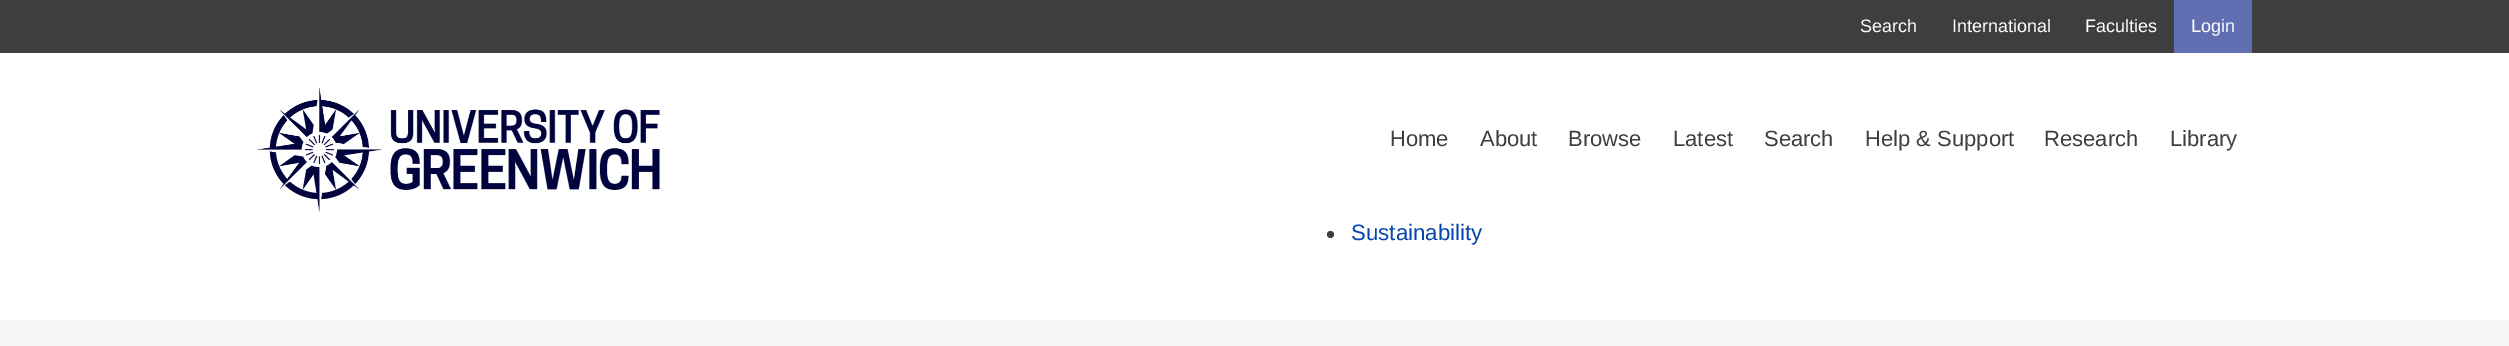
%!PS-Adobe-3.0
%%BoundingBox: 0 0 2509 346
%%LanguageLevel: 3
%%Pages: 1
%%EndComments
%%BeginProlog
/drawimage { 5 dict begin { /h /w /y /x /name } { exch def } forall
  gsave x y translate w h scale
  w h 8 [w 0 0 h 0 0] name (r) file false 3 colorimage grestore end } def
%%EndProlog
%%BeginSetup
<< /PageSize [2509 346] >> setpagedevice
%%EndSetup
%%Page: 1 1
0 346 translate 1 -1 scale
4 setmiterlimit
1 setgray
0 0 2509 346 rectfill
0.243 setgray
0 0 2509 53 rectfill
0.376 0.431 0.698 setrgbcolor
2174 0 78 53 rectfill
(images/1.raw) 257 88 403 124 drawimage
0.965 setgray
0 320 2509 26 rectfill
0.243 setgray
newpath 1330.5 234.5 3.5 0 360 arc closepath fill
/LiberationSans-Regular [18 0 0 -18 0 0] selectfont
1 setgray
1860 32 moveto (Search) show
1952 32 moveto (International) show
2085 32 moveto (Faculties) show
2191 32 moveto (Login) show
/LiberationSans-Regular [22 0 0 -22 0 0] selectfont
0.243 setgray
1390 146 moveto (Home) show
1480 146 moveto (About) show
1568 146 moveto (Browse) show
1673 146 moveto (Latest) show
1764 146 moveto (Search) show
1865 146 moveto (Help & Support) show
2044 146 moveto (Research) show
2170 146 moveto (Library) show
/LiberationSans-Regular [22.25 0 0 -22.25 0 0] selectfont
0.024 0.271 0.678 setrgbcolor
1351 240 moveto (Sustainability) show
showpage
%%EOF
